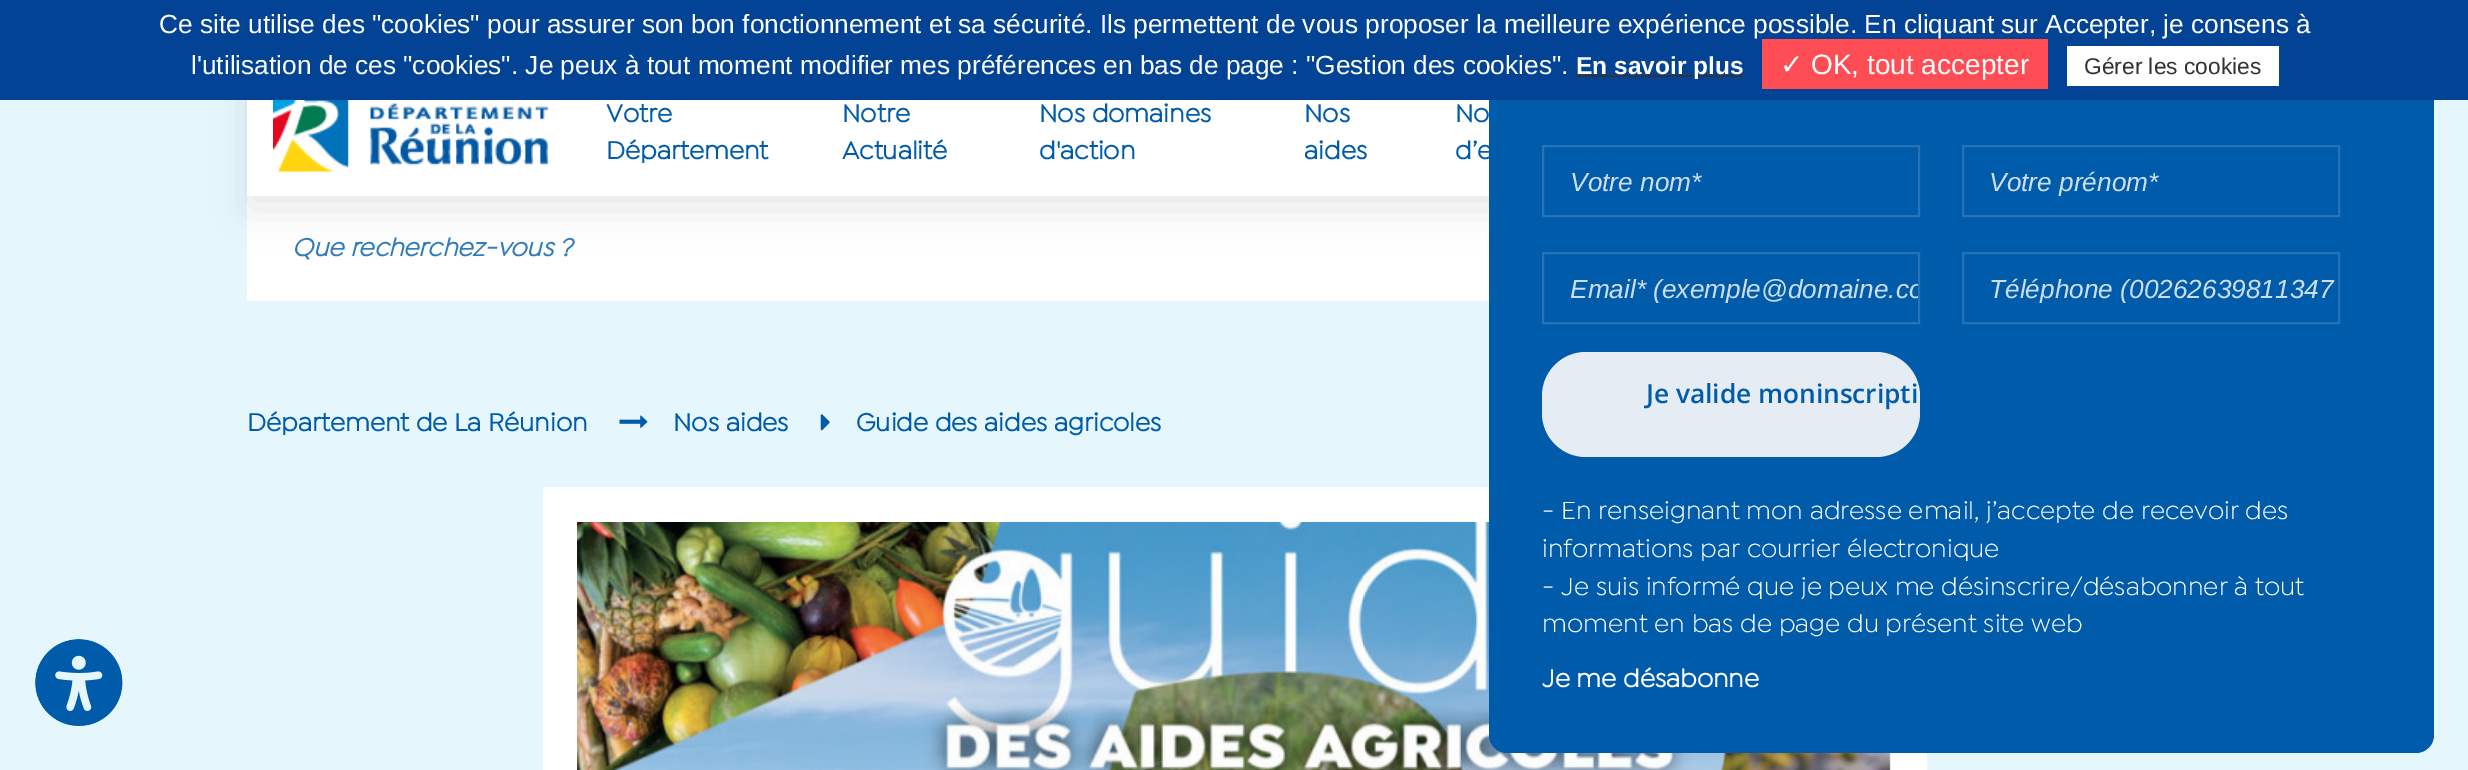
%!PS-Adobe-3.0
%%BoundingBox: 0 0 2468 770
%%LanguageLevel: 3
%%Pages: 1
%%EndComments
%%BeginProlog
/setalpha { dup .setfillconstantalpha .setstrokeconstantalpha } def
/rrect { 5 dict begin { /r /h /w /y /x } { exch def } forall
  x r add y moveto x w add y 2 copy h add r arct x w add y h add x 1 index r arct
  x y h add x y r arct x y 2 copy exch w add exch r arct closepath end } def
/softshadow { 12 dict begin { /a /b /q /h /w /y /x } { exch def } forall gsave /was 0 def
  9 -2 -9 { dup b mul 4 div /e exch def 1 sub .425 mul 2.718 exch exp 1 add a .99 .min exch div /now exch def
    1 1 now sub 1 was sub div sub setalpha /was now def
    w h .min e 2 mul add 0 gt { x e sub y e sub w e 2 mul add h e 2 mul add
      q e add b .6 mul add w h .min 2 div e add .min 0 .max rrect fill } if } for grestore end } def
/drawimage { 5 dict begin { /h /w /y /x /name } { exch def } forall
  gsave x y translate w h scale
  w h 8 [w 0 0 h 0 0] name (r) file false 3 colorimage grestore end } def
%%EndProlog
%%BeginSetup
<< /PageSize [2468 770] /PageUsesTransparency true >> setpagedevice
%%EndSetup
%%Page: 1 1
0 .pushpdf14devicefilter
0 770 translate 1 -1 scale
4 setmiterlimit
0.898 0.965 0.988 setrgbcolor
0 0 2468 770 rectfill
1 setgray
247 196 1242 105 rectfill
0 setgray
249 84 1975 124 0 19 0.1 softshadow
1 setgray
543 487 1384 283 rectfill
(images/5.raw) 577 522 1314 248 drawimage
0 0.357 0.667 setrgbcolor
1489 18 945 735 18 rrect fill
0.008 0.263 0.584 setrgbcolor
0 0 2468 100 rectfill
0.2 setgray
1575 75 168 2 rectfill
0.996 0.302 0.333 setrgbcolor
1762 39 286 50 rectfill
1 setgray
2067 46 212 40 rectfill
247 100 1242 96 rectfill
(images/1.raw) 273 100 276 73 drawimage
(images/2.raw) 619 415 29 13 drawimage
(images/3.raw) 820 414 10 17 drawimage
(images/4.raw) 35 639 88 87 drawimage
0.149 0.455 0.718 setrgbcolor
2 setlinewidth
1543 146 376 70 rectstroke
1963 146 376 70 rectstroke
1543 253 376 70 rectstroke
1963 253 376 70 rectstroke
0.898 0.925 0.957 setrgbcolor
1542 352 378 105 44 rrect fill
/LiberationSans-Regular [26.25 0 0 -26.25 0 0] selectfont
1 setgray
159 33 moveto (Ce site utilise des "cookies" pour assurer son bon fonctionnement et sa sécurité. Ils permettent de vous proposer la meilleure expérience possible. En cliquant sur Accepter, je consens à) show
191 74 moveto (l'utilisation de ces "cookies". Je peux à tout moment modifier mes préférences en bas de page : "Gestion des cookies".) show
/LiberationSans-Bold [24.5 0 0 -24.5 0 0] selectfont
1576 74 moveto (En savoir plus) show
/DejaVuSans-Regular [28 0 0 -28 0 0] selectfont
1780 74 moveto (✓) show
/LiberationSans-Regular [28 0 0 -28 0 0] selectfont
1811 74 moveto (OK, tout accepter) show
/LiberationSans-Regular [22.75 0 0 -22.75 0 0] selectfont
0.2 setgray
2084 74 moveto (Gérer les cookies) show
/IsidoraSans-Bold [26.25 0 0 -26.25 0 0] selectfont
0 0.357 0.667 setrgbcolor
606 122 moveto (Votre) show
606 159 moveto (Département) show
842 122 moveto (Notre) show
842 159 moveto (Actualité) show
1039 122 moveto (Nos domaines) show
1039 159 moveto (d'action) show
1304 122 moveto (Nos) show
1304 159 moveto (aides) show
1455 122 moveto (No) show
1455 159 moveto (d’e) show
/IsidoraSans-BoldItalic [26.25 0 0 -26.25 0 0] selectfont
0.2 0.486 0.733 setrgbcolor
292 256 moveto (Que recherchez-vous ?) show
/IsidoraSans-Bold [26.25 0 0 -26.25 0 0] selectfont
0 0.357 0.667 setrgbcolor
247 431 moveto (Département de La Réunion) show
673 431 moveto (Nos aides) show
856 431 moveto (Guide des aides agricoles) show
/LiberationSans-Italic [26.25 0 0 -26.25 0 0] selectfont
0.8 0.871 0.933 setrgbcolor
1570 191 moveto (Votre nom*) show
gsave
1990 166 348 30 rectclip
1989 191 moveto (Votre prénom*) show
grestore
gsave
1570 273 348 30 rectclip
1570 298 moveto (Email* \(exemple@domaine.co) show
grestore
gsave
1990 273 348 30 rectclip
1989 298 moveto (Téléphone \(00262639811347) show
grestore
/OpenSans-SemiBold [26.25 0 0 -26.25 0 0] selectfont
0 0.357 0.667 setrgbcolor
1646 403 moveto (Je valide moninscripti) show
/IsidoraSans-Regular [26.25 0 0 -26.25 0 0] selectfont
1 setgray
1542 519 moveto (- En renseignant mon adresse email, j’accepte de recevoir des) show
1542 557 moveto (informations par courrier électronique) show
1542 595 moveto (- Je suis informé que je peux me désinscrire/désabonner à tout) show
1542 632 moveto (moment en bas de page du présent site web) show
/IsidoraSans-Bold [26.25 0 0 -26.25 0 0] selectfont
1542 687 moveto (Je me désabonne) show
.poppdf14devicefilter showpage
%%EOF
